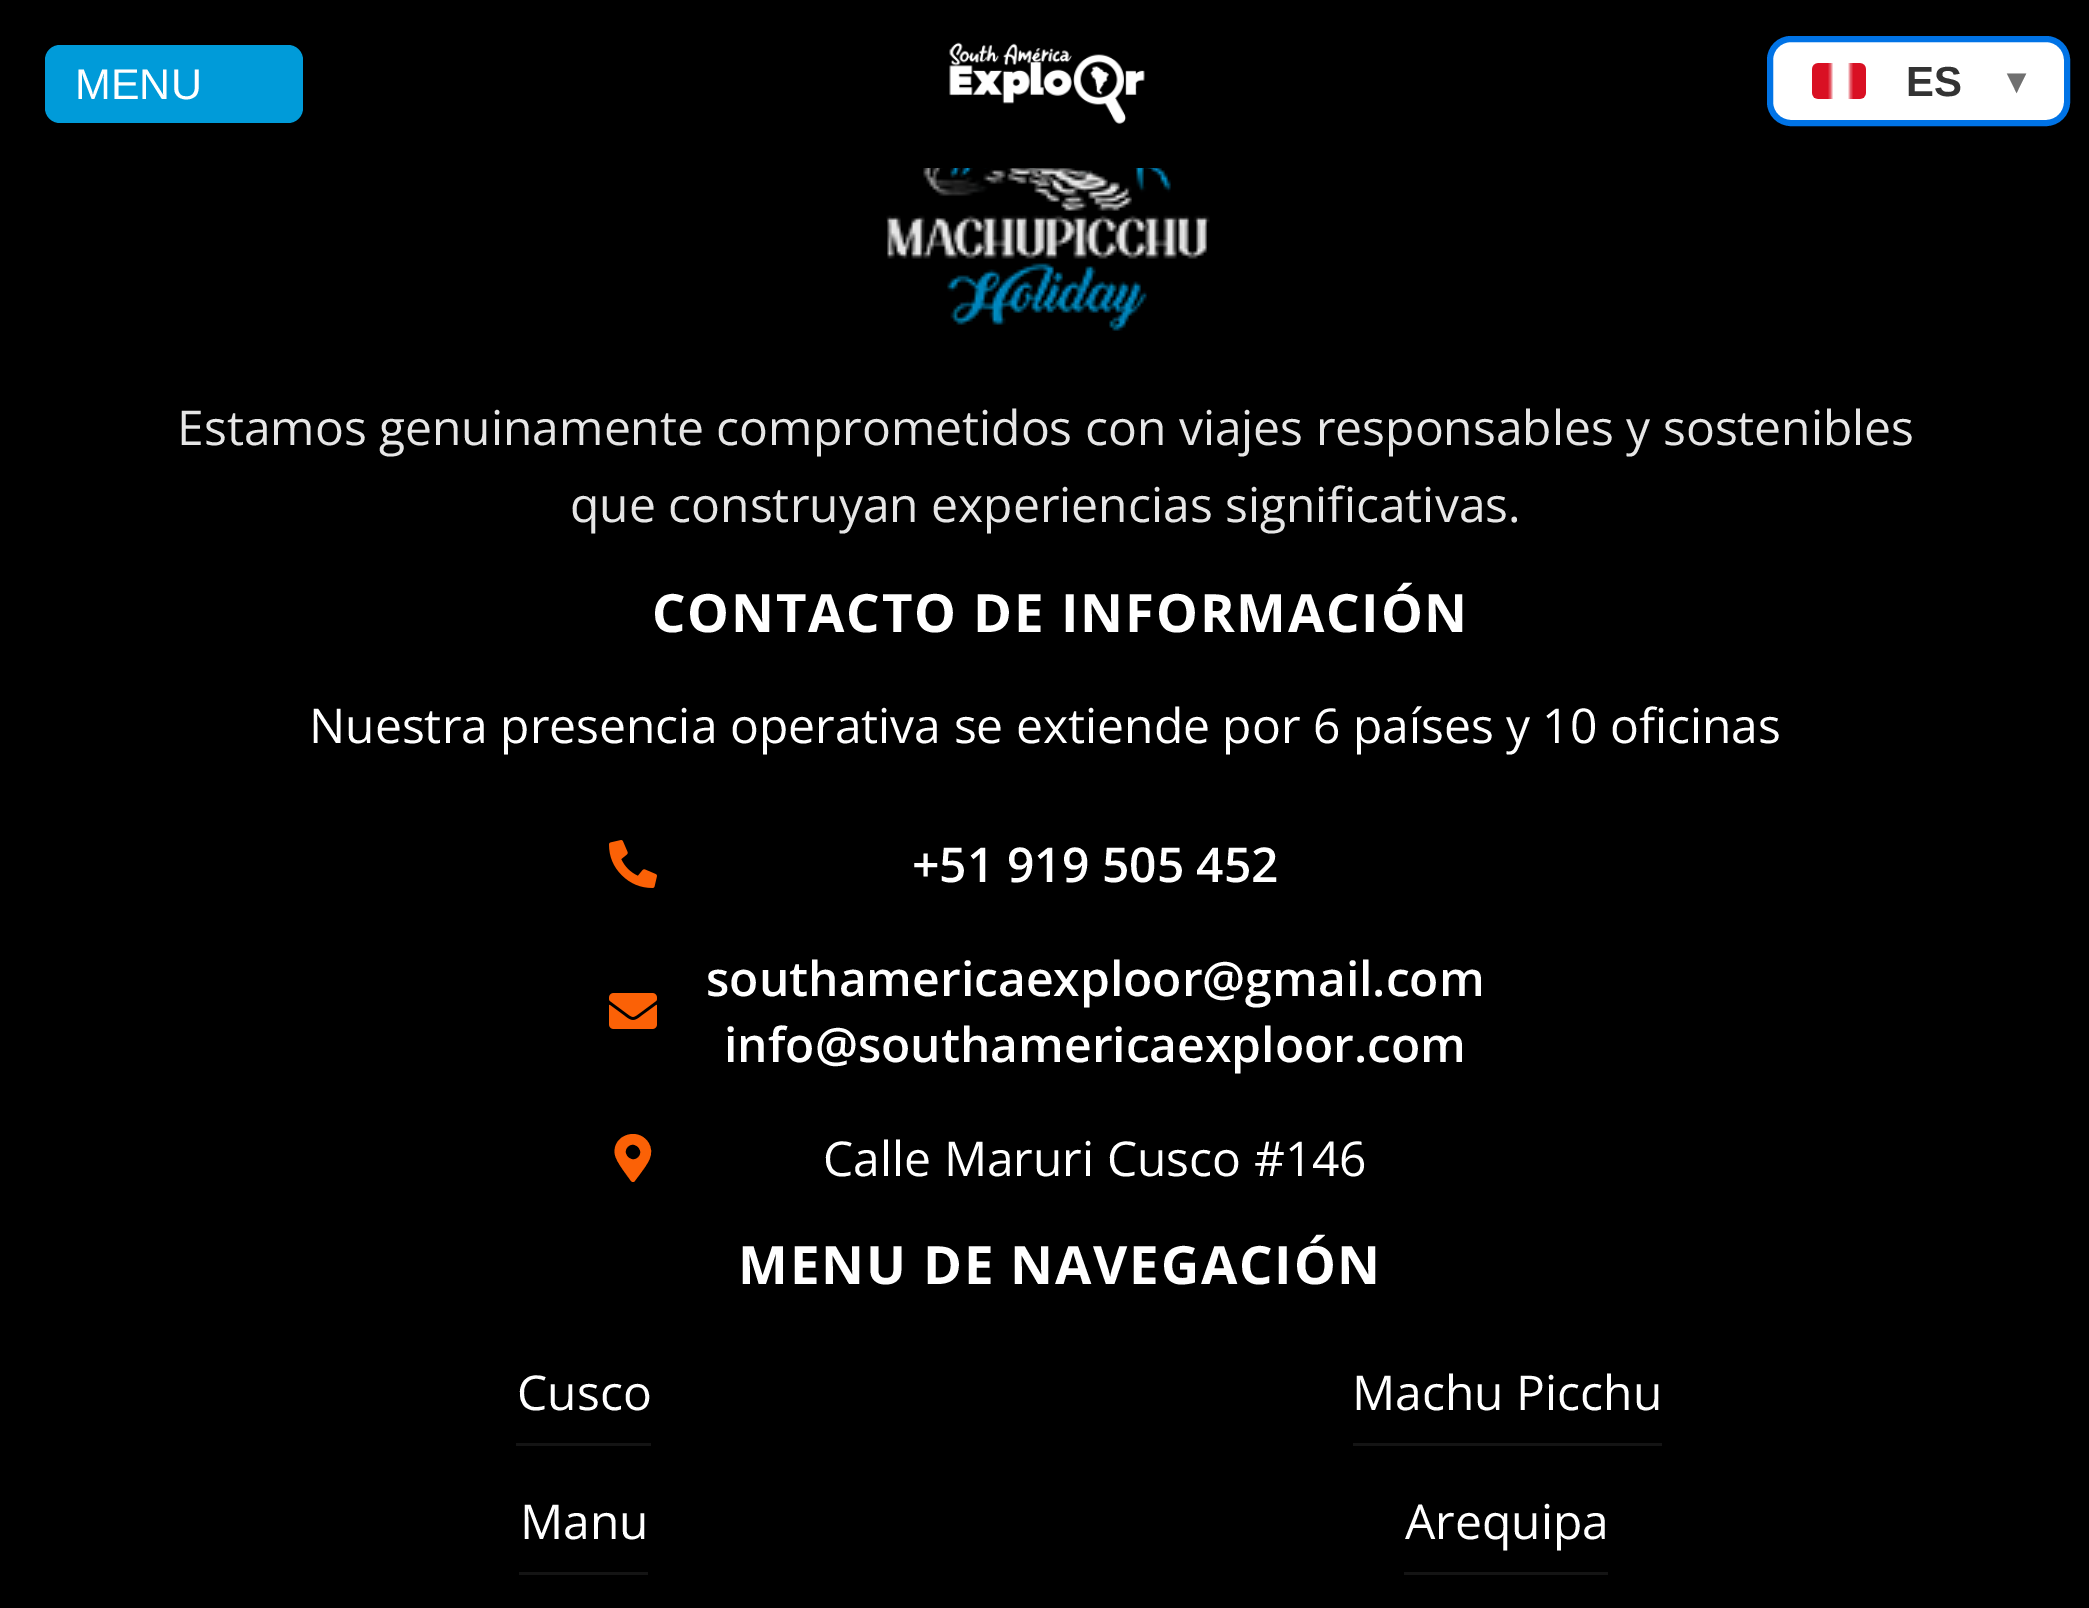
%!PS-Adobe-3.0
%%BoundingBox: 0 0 2089 1608
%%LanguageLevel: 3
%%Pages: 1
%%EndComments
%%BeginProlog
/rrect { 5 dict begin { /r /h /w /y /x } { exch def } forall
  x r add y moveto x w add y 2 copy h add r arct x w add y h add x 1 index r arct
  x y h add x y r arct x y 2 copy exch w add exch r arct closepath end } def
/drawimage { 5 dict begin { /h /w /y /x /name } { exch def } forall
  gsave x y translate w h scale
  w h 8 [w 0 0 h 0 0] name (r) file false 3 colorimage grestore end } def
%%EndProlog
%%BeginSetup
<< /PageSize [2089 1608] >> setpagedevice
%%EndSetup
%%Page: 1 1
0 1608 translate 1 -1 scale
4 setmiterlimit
0 setgray
0 0 2089 1608 rectfill
0 0.608 0.851 setrgbcolor
45 45 258 78 15 rrect fill
(images/1.raw) 949 42 196 82 drawimage
1 setgray
1770 39 297 84 21 rrect gsave fill grestore
0 0.451 0.902 setrgbcolor
6 setlinewidth
stroke
(images/2.raw) 1812 63 54 36 drawimage
(images/3.raw) 886 168 324 163 drawimage
(images/4.raw) 609 840 48 48 drawimage
(images/5.raw) 609 993 48 36 drawimage
0.984 0.38 0.024 setrgbcolor
newpath 631 1181 moveto 627 1175 617 1163 615 1155 curveto 611 1136 637 1126 648 1142 curveto 656 1154 647 1164 640 1174 curveto 634 1182 lineto 633 1182 632 1182 631 1181 curveto closepath 628 1157 moveto 635 1164 645 1154 638 1147 curveto 631 1140 621 1150 628 1157 curveto closepath fill
0.078 setgray
516 1443 135 3 rectfill
1353 1443 309 3 rectfill
519 1572 129 3 rectfill
1404 1572 204 3 rectfill
/LiberationSans-Regular [43 0 0 -43 0 0] selectfont
1 setgray
75 99 moveto (MENU) show
/LiberationSans-Bold [42 0 0 -42 0 0] selectfont
0.2 setgray
1906 96 moveto (ES) show
/DejaVuSans-Bold [36 0 0 -36 0 0] selectfont
0.439 setgray
2007 93 moveto (▾) show
/OpenSans-Regular [48 0 0 -48 0 0] selectfont
0.902 setgray
177 445 moveto (Estamos genuinamente comprometidos con viajes responsables y sostenibles) show
570 522 moveto (que construyan experiencias significativas.) show
/OpenSans-Bold [52.75 0 0 -52.75 0 0] selectfont
1 setgray
652 632 moveto 1.8 0 (CONTACTO DE INFORMACIÓN) ashow
/OpenSans-Regular [48 0 0 -48 0 0] selectfont
309 743 moveto (Nuestra presencia operativa se extiende por 6 países y 10 oficinas) show
/OpenSans-SemiBold [48 0 0 -48 0 0] selectfont
912 882 moveto (+51 919 505 452) show
706 996 moveto (southamericaexploor@gmail.com) show
724 1062 moveto (info@southamericaexploor.com) show
/OpenSans-Regular [48 0 0 -48 0 0] selectfont
823 1176 moveto (Calle Maruri Cusco #146) show
/OpenSans-Bold [52.75 0 0 -52.75 0 0] selectfont
738 1284 moveto 1.8 0 (MENU DE NAVEGACIÓN) ashow
/OpenSans-Regular [48 0 0 -48 0 0] selectfont
517 1410 moveto (Cusco) show
1352 1410 moveto (Machu Picchu) show
520 1539 moveto (Manu) show
1405 1539 moveto (Arequipa) show
showpage
%%EOF
